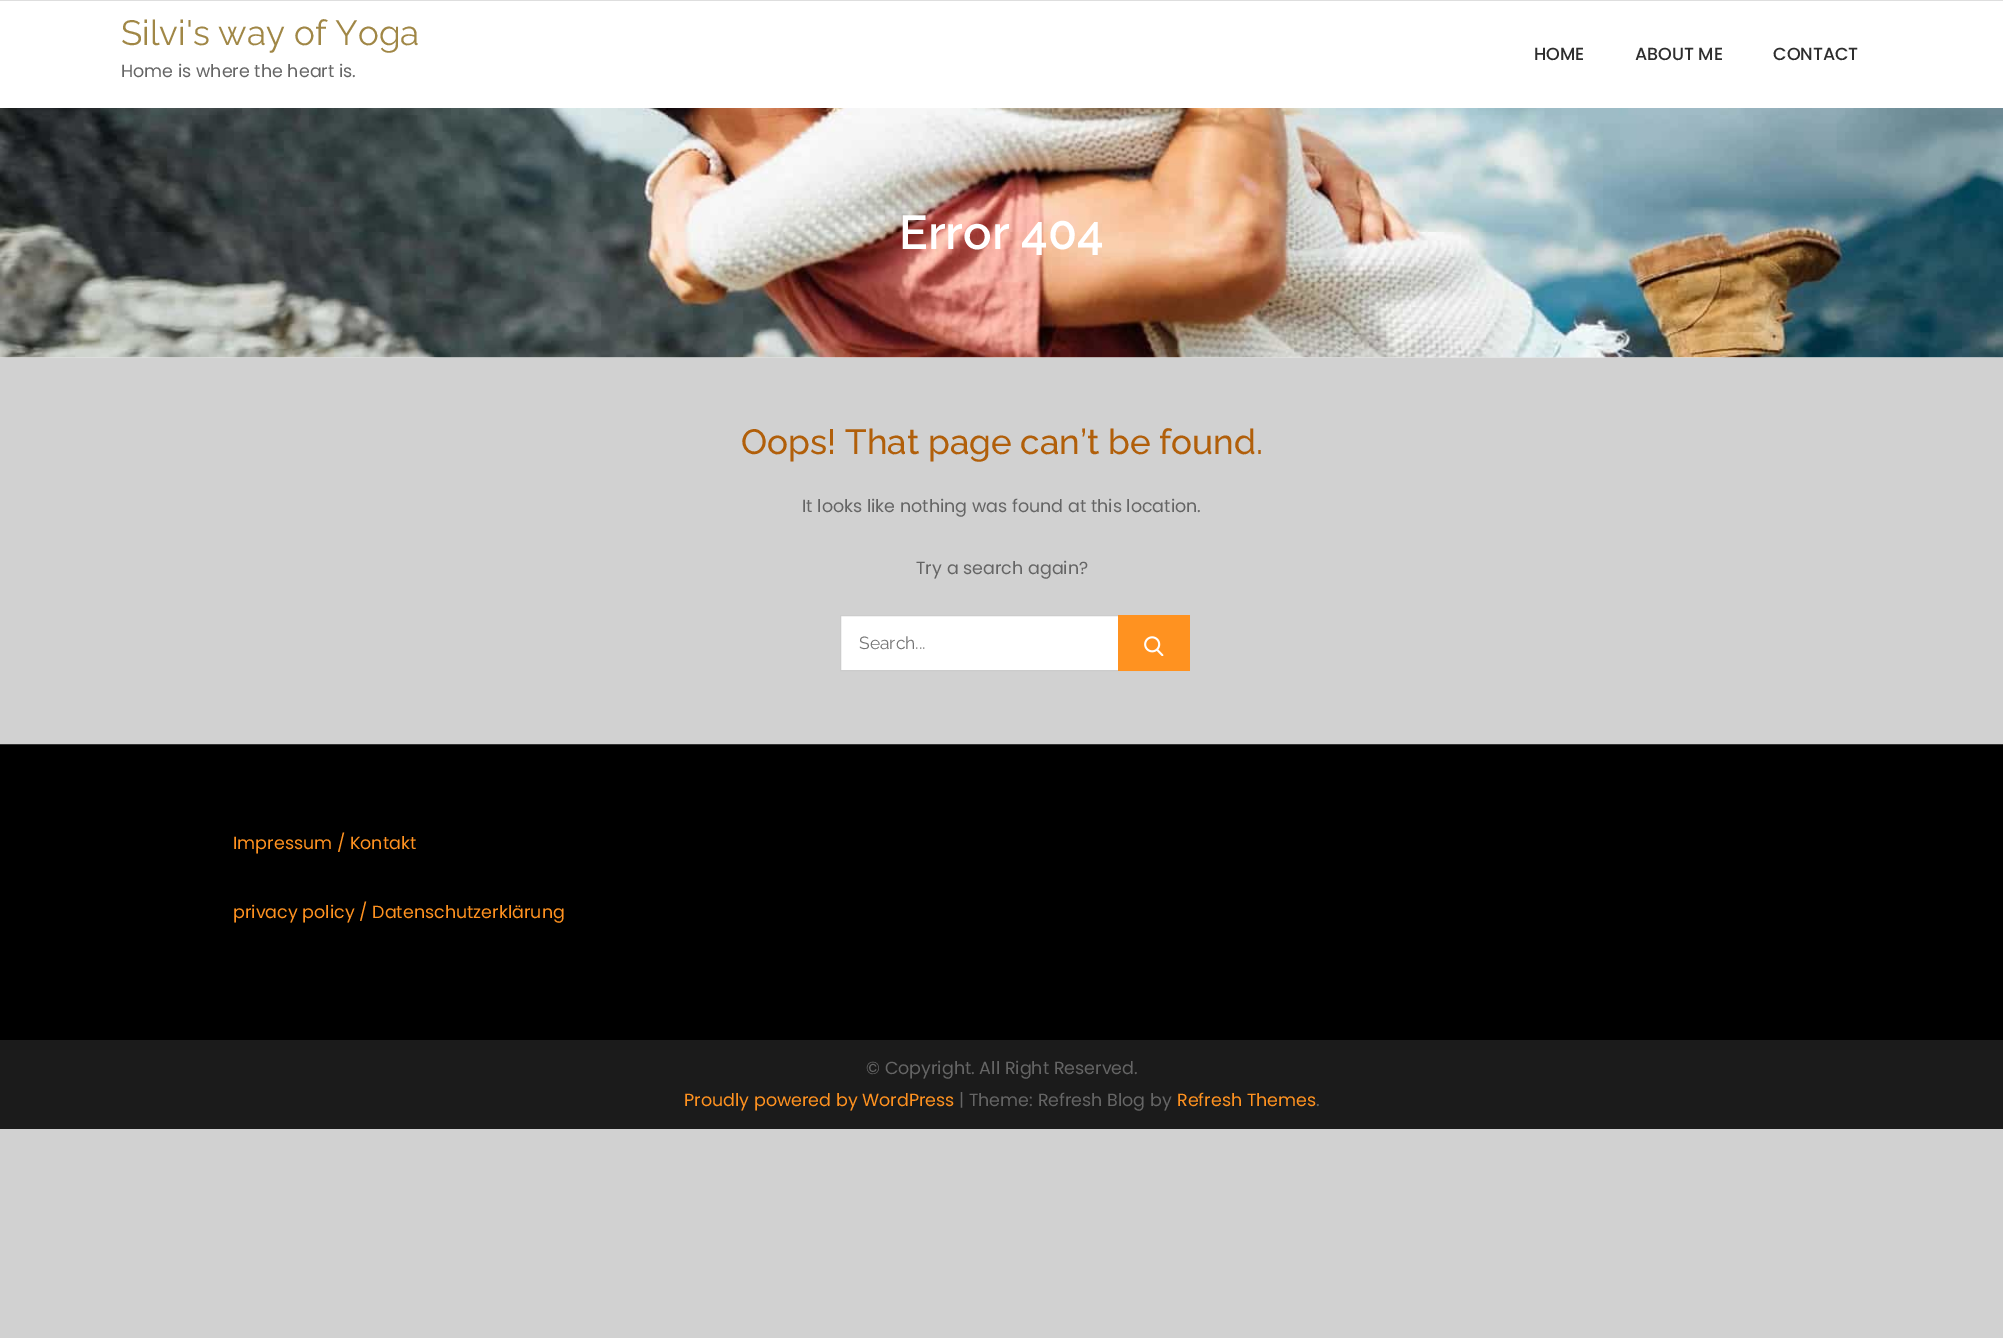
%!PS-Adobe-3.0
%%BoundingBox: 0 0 2003 1338
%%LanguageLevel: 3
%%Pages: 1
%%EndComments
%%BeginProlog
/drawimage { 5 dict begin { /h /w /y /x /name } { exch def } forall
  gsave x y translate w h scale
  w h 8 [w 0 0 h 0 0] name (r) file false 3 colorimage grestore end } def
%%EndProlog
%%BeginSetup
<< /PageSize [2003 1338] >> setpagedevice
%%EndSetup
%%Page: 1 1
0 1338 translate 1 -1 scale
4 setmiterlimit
0.82 setgray
0 0 2003 1338 rectfill
1 setgray
0 1 2003 107 rectfill
0.871 setgray
0 0 2003 1 rectfill
0.882 setgray
0 357 2003 1 rectfill
(images/1.raw) 0 108 2003 250 drawimage
1 setgray
841 616 277 54 rectfill
0.8 setgray
840.5 615.5 324 55 rectstroke
1 0.573 0.125 setrgbcolor
1118 615 72 56 rectfill
(images/2.raw) 1144 636 20 20 drawimage
0 setgray
0 745 2003 295 rectfill
0.2 setgray
0 744 2003 1 rectfill
0.106 setgray
0 1040 2003 89 rectfill
/Raleway-Regular [35 0 0 -35 0 0] selectfont
0.627 0.529 0.275 setrgbcolor
121 45 moveto (Silvi's way of Yoga) show
/Poppins-Regular [17.5 0 0 -17.5 0 0] selectfont
0.396 setgray
121 77 moveto (Home is where the heart is.) show
/Poppins-Medium [17.5 0 0 -17.5 0 0] selectfont
0.18 setgray
1534 60 moveto (HOME) show
1635 60 moveto (ABOUT ME) show
1773 60 moveto (CONTACT) show
/Raleway-SemiBold [47.5 0 0 -47.5 0 0] selectfont
1 setgray
899 249 moveto (Error 404) show
/Raleway-Medium [35 0 0 -35 0 0] selectfont
0.694 0.373 0.039 setrgbcolor
741 454 moveto (Oops! That page can’t be found.) show
/Poppins-Regular [17.5 0 0 -17.5 0 0] selectfont
0.396 setgray
802 512 moveto (It looks like nothing was found at this location.) show
916 574 moveto (Try a search again?) show
/Raleway-Regular [17.5 0 0 -17.5 0 0] selectfont
0.459 setgray
859 649 moveto (Search...) show
/Poppins-Regular [17.5 0 0 -17.5 0 0] selectfont
1 0.573 0.125 setrgbcolor
233 849 moveto (Impressum / Kontakt) show
233 918 moveto (privacy policy / Datenschutzerklärung) show
0.396 setgray
866 1074 moveto (© Copyright. All Right Reserved.) show
1 0.573 0.125 setrgbcolor
684 1106 moveto (Proudly powered by WordPress) show
0.396 setgray
959 1106 moveto (| Theme: Refresh Blog by) show
1 0.573 0.125 setrgbcolor
1177 1106 moveto (Refresh Themes) show
0.396 setgray
1316 1106 moveto (.) show
showpage
%%EOF
